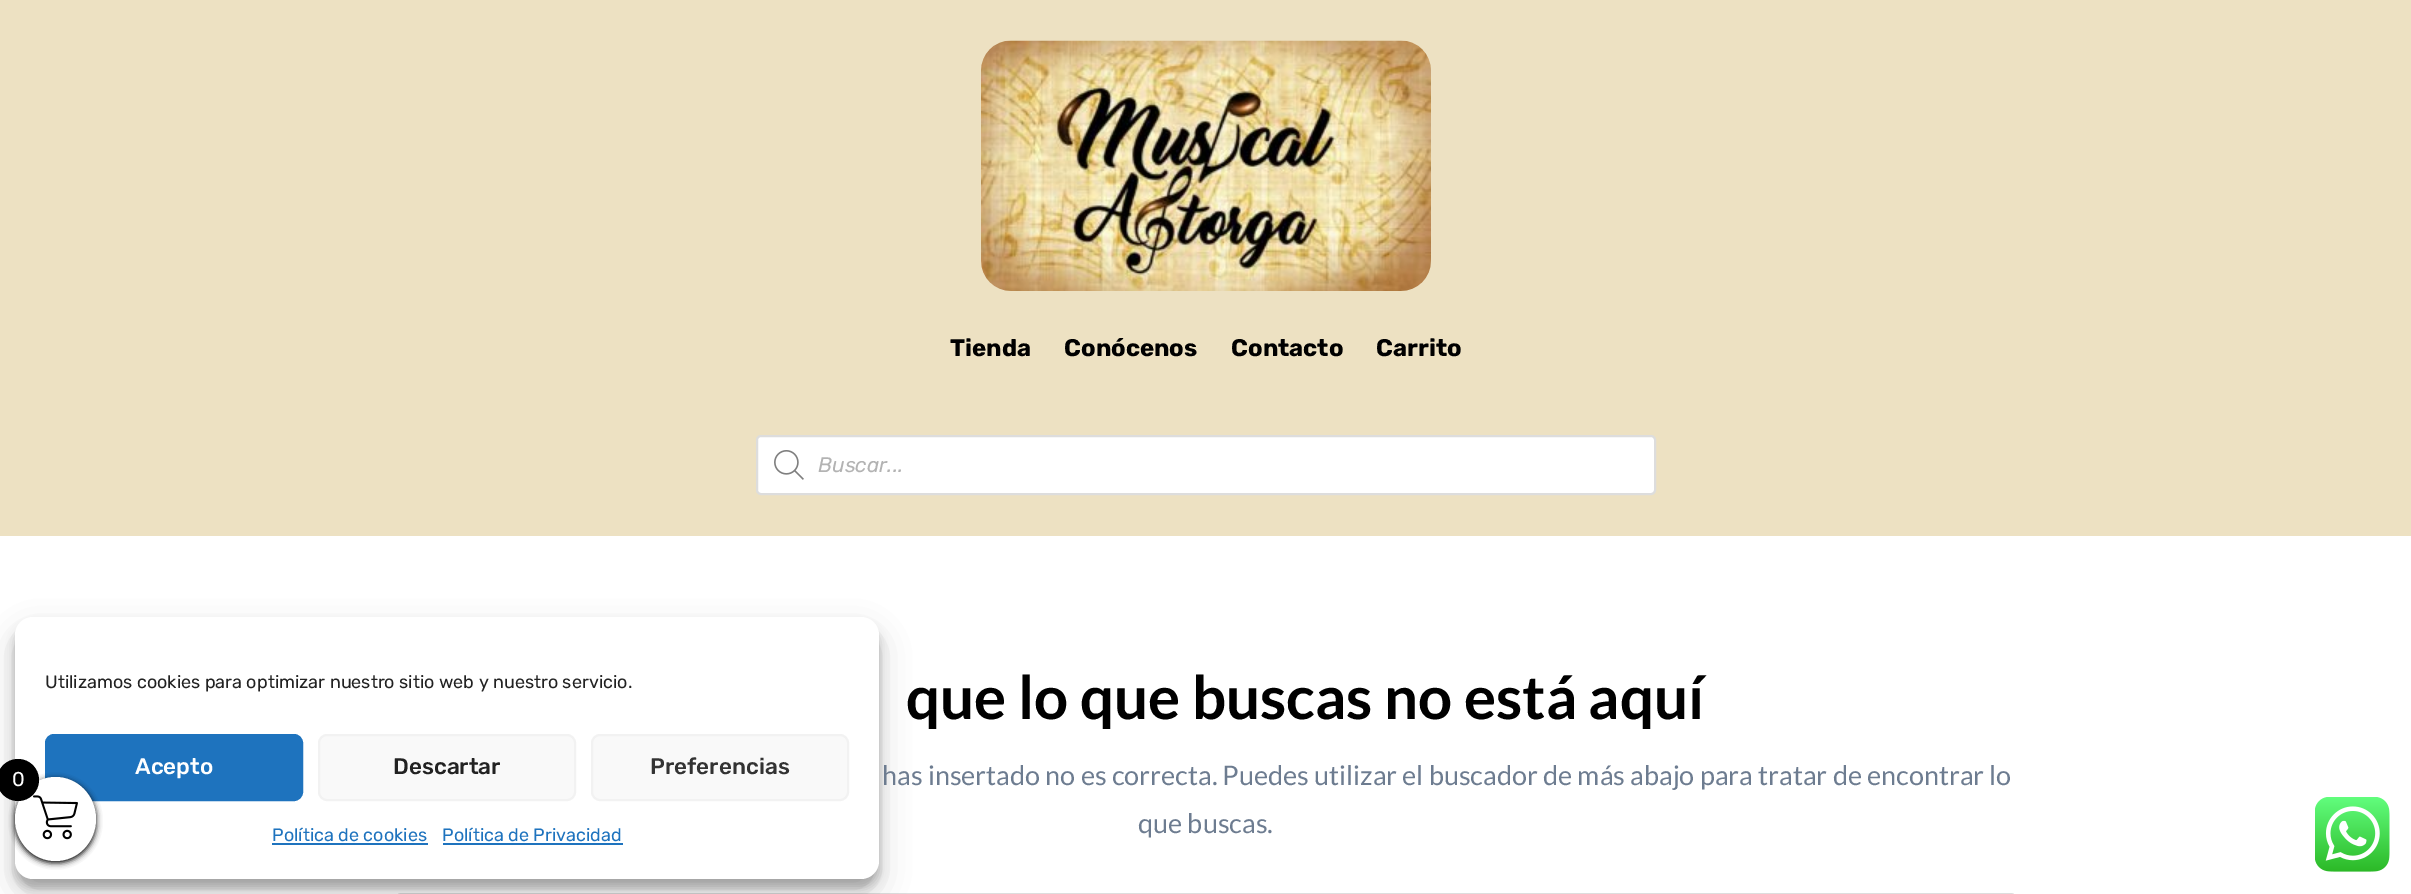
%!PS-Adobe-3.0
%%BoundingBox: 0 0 2411 894
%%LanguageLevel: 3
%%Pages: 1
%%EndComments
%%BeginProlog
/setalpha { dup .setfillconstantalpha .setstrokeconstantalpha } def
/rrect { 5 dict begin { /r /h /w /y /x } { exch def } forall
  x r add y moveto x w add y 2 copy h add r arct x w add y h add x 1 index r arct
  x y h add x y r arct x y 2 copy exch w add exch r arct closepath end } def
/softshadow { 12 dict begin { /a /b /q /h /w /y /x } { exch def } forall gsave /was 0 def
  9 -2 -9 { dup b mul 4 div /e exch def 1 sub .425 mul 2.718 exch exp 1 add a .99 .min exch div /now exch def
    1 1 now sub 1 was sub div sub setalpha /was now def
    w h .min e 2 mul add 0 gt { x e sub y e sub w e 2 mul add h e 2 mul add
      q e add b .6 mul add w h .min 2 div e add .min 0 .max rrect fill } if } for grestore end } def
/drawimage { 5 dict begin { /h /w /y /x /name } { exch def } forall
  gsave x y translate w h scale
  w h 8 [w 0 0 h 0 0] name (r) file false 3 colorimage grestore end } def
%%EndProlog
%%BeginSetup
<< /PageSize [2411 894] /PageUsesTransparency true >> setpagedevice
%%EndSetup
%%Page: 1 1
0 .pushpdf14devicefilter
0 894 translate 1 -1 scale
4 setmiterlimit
1 setgray
0 0 2411 894 rectfill
0.867 setgray
2 setlinewidth
397 894 1618 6 4 rrect stroke
0 setgray
15 626 864 262 18 4.5 0.23 softshadow
15 632 864 262 18 15 0.19 softshadow
1 setgray
15 617 864 262 18 rrect fill
0.118 0.451 0.745 setrgbcolor
46 735 256 65 8 rrect gsave fill grestore
stroke
0 setgray
15 779 81 84 40.5 3 1 softshadow
1 setgray
newpath 55.5 777 moveto 78 777 96 796 96 819 curveto 96 842 78 861 55.5 861 curveto 33 861 15 842 15 819 curveto 15 796 33 777 55.5 777 curveto closepath fill
0 setgray
newpath 18 780 21 0 360 arc closepath fill
(images/1.raw) 33 795 45 45 drawimage
0.976 setgray
319 735 256 65 8 rrect gsave fill grestore
0.949 setgray
stroke
0.976 setgray
592 735 256 65 8 rrect gsave fill grestore
0.949 setgray
stroke
0.118 0.451 0.745 setrgbcolor
272 843 156 2 rectfill
443 843 180 2 rectfill
0.929 0.882 0.761 setrgbcolor
0 0 2411 536 rectfill
(images/2.raw) 981 40 450 251 drawimage
1 setgray
757 436 898 58 4 rrect gsave fill grestore
0.867 setgray
stroke
(images/3.raw) 774 450 30 30 drawimage
(images/4.raw) 2315 797 75 75 drawimage
/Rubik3-Light [20 0 0 -20 0 0] selectfont
1 setgray
12 786 moveto (0) show
/Rubik3-Light [18 0 0 -18 0 0] selectfont
0.133 setgray
45 688 moveto (Utilizamos cookies para optimizar nuestro sitio web y nuestro servicio.) show
/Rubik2-Light [22.5 0 0 -22.5 0 0] selectfont
1 setgray
135 774 moveto (Acepto) show
0.133 setgray
393 774 moveto (Descartar) show
0.2 setgray
650 774 moveto (Preferencias) show
/Rubik3-Light [18 0 0 -18 0 0] selectfont
0.118 0.451 0.745 setrgbcolor
272 841 moveto (Política de cookies) show
442 841 moveto (Política de Privacidad) show
/Rubik-Light [24 0 0 -24 0 0] selectfont
0 setgray
950 356 moveto (Tienda) show
1064 356 moveto (Conócenos) show
1231 356 moveto (Contacto) show
1376 356 moveto (Carrito) show
/Rubik-LightItalic [21 0 0 -21 0 0] selectfont
0.702 setgray
818 472 moveto (Buscar...) show
/Lato-Bold [60 0 0 -60 0 0] selectfont
0 setgray
906 719 moveto (que lo que buscas no está aquí) show
/Lato-Regular [27 0 0 -27 0 0] selectfont
0.427 0.486 0.565 setrgbcolor
882 785 moveto (has insertado no es correcta. Puedes utilizar el buscador de más abajo para tratar de encontrar lo) show
1138 833 moveto (que buscas.) show
.poppdf14devicefilter showpage
%%EOF
